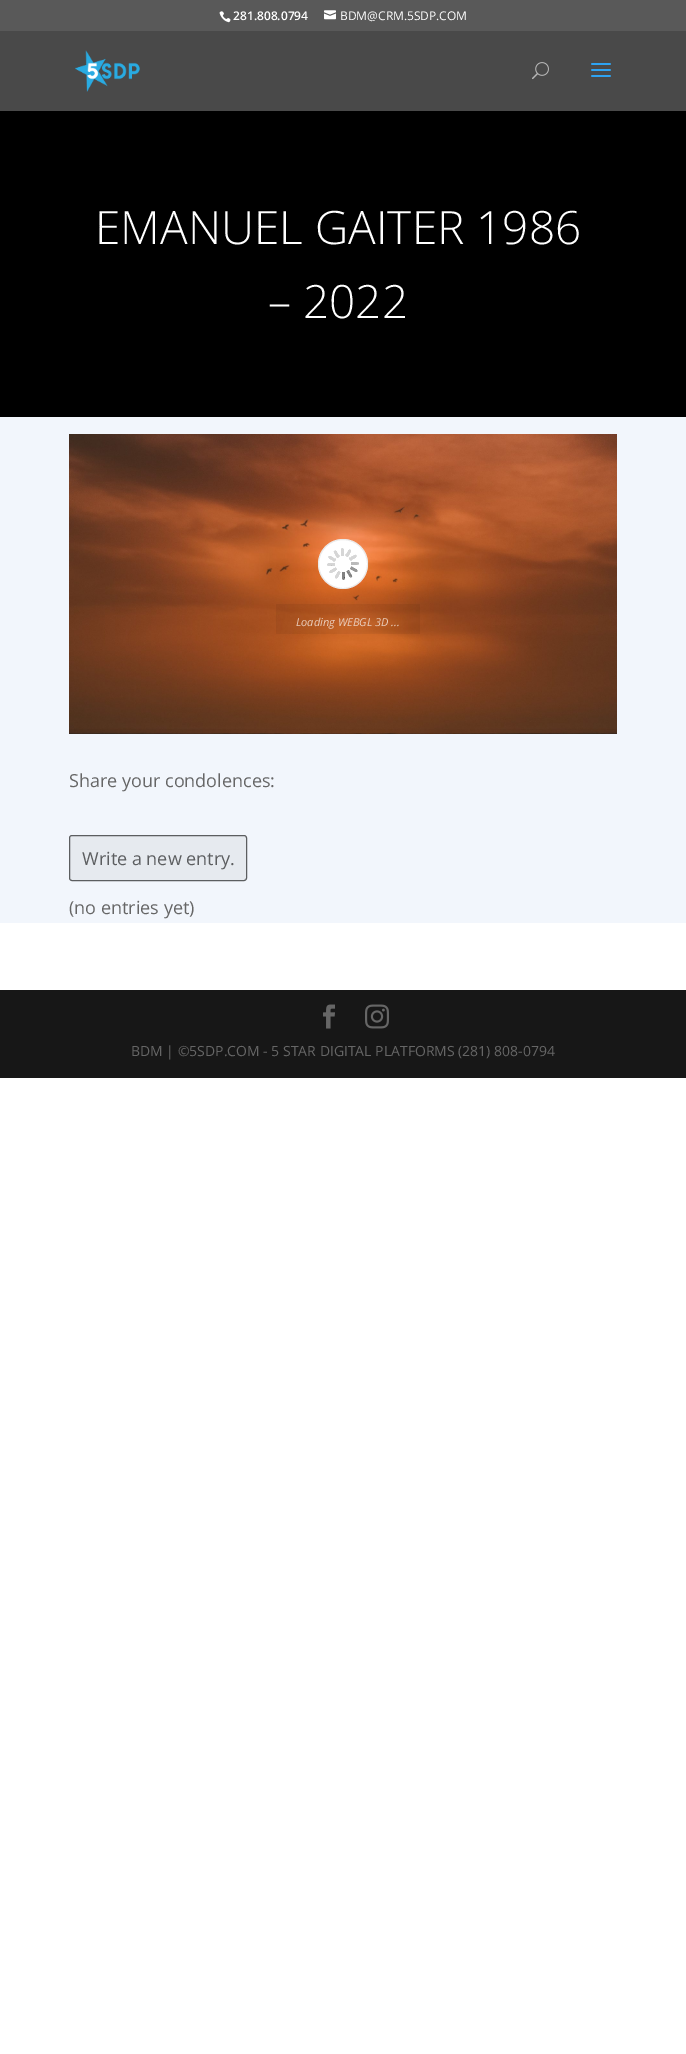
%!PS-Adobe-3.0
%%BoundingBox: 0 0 686 2054
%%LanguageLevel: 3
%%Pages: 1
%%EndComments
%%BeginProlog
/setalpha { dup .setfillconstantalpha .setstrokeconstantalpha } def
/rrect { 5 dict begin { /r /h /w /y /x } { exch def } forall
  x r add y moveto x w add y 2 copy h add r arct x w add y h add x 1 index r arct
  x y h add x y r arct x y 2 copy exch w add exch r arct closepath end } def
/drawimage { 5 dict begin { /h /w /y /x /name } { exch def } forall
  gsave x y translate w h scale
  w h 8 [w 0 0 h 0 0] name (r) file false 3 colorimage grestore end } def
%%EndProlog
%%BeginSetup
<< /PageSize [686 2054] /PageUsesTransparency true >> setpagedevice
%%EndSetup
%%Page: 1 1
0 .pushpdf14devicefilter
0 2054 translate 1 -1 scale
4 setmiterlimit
1 setgray
0 0 686 2054 rectfill
0.349 setgray
0 0 686 31 rectfill
(images/1.raw) 219 11 12 12 drawimage
(images/2.raw) 324 10 12 10 drawimage
0.286 setgray
0 31 686 80 rectfill
(images/3.raw) 75 50 65 42 drawimage
(images/4.raw) 532 62 17 18 drawimage
(images/5.raw) 591 63 20 14 drawimage
0 setgray
0 111 686 306 rectfill
0.949 0.965 0.988 setrgbcolor
0 417 686 506 rectfill
(images/6.raw) 69 434 548 300 drawimage
1 setgray
newpath 343 564 25 0 360 arc closepath fill
0.2 setalpha
0.588 setgray
newpath 343 564 24.5 0 360 arc closepath stroke
1 setalpha
(images/7.raw) 327 548 32 32 drawimage
0.06 setalpha
0 setgray
276 604 144 30 rectfill
1 setalpha
0.902 0.918 0.937 setrgbcolor
69 835 178 46 3 rrect fill
0.6 setalpha
0 setgray
69.5 835.5 177 45 2.5 rrect stroke
1 setalpha
0.09 setgray
0 990 686 88 rectfill
(images/8.raw) 323 1004 12 25 drawimage
(images/9.raw) 365 1004 24 25 drawimage
/OpenSans-SemiBold [12 0 0 -12 0 0] selectfont
1 setgray
233 20 moveto (281.808.0794) show
/OpenSans-Regular [12 0 0 -12 0 0] selectfont
340 20 moveto (BDM@CRM.5SDP.COM) show
/OpenSans-Light [46 0 0 -46 0 0] selectfont
95 244 moveto (EMANUEL GAITER 1986) show
268 318 moveto (– 2022) show
/OpenSans-Italic [11 0 0 -11 0 0] selectfont
0.918 0.808 0.741 setrgbcolor
296 626 moveto (Loading WEBGL 3D ...) show
/OpenSans-Regular [18 0 0 -18 0 0] selectfont
0.4 setgray
69 787 moveto (Share your condolences:) show
0.361 0.369 0.376 setrgbcolor
82 865 moveto (Write a new entry.) show
0.4 setgray
69 914 moveto (\(no entries yet\)) show
/OpenSans-Regular [14 0 0 -14 0 0] selectfont
131 1056 moveto (BDM | ©5SDP.COM - 5 STAR DIGITAL PLATFORMS \(281\) 808-0794) show
.poppdf14devicefilter showpage
%%EOF
